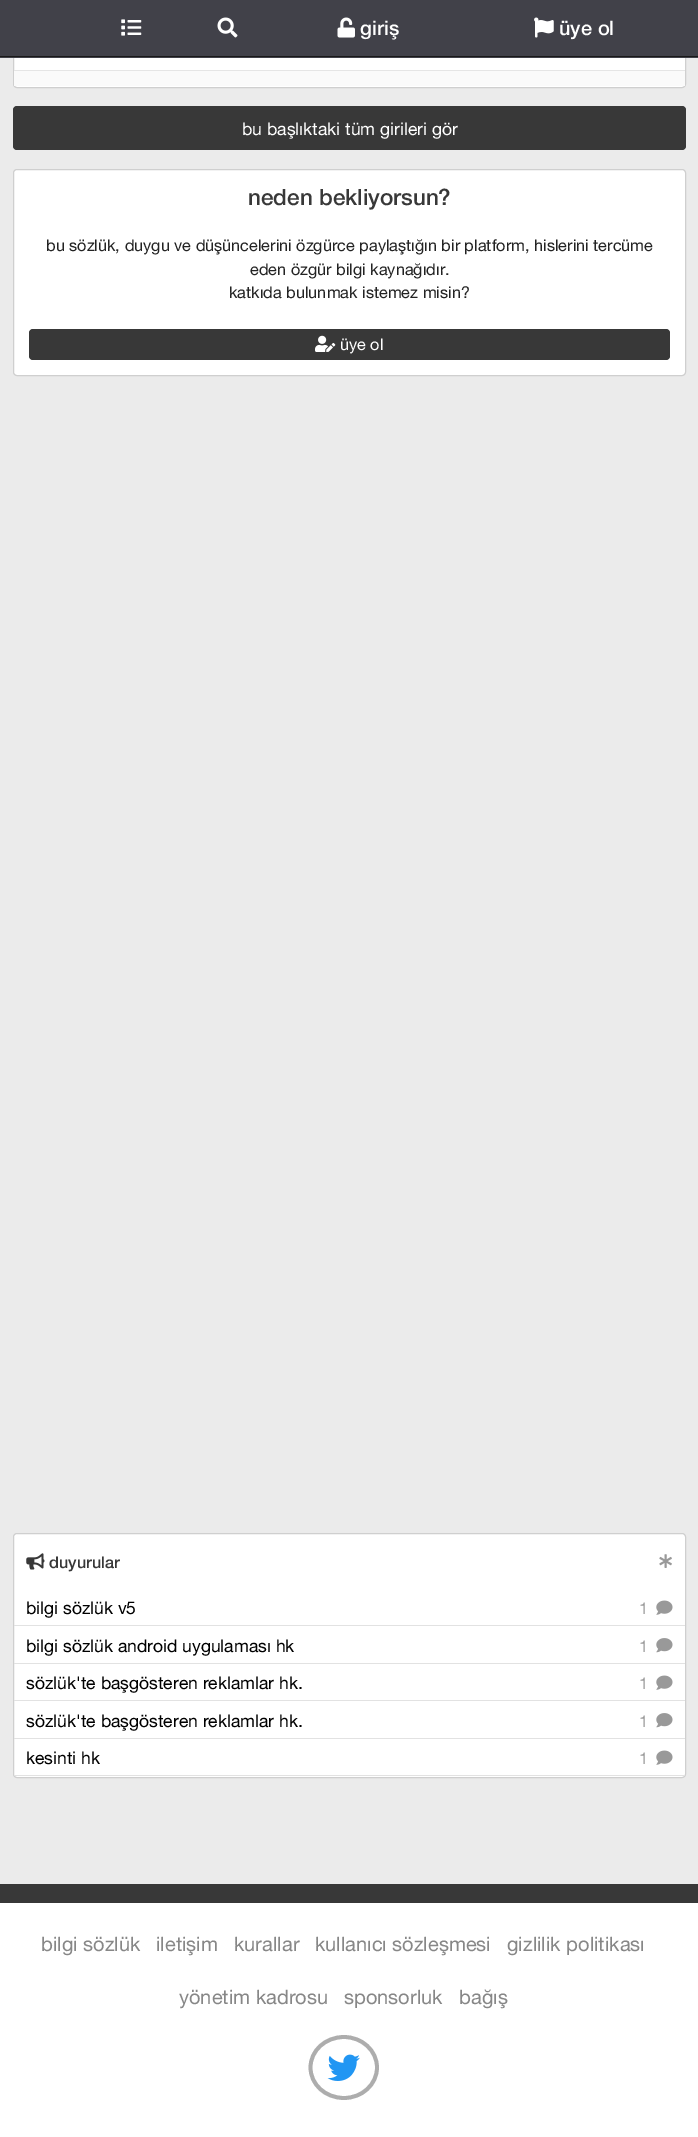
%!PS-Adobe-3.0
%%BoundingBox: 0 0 698 2137
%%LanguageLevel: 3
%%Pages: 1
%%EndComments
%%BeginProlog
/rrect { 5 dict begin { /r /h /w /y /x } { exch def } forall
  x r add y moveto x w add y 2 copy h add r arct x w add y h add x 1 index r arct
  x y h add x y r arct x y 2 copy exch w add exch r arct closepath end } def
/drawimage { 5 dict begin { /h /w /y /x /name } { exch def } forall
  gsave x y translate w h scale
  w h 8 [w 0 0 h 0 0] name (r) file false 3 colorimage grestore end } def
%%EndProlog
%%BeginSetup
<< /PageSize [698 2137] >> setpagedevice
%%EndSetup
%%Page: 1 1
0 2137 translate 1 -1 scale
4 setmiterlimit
0.922 setgray
0 0 698 2137 rectfill
1 setgray
13.5 -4.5 672 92 3.5 rrect gsave fill grestore
0.812 setgray
stroke
0.255 0.255 0.286 setrgbcolor
0 0 698 58 rectfill
0.098 setgray
0 56 698 1 rectfill
(images/1.raw) 121 19 21 17 drawimage
(images/2.raw) 217 17 21 21 drawimage
(images/3.raw) 337 17 18 21 drawimage
(images/4.raw) 534 17 20 21 drawimage
0.98 setgray
14 71 671 15 rectfill
0.898 setgray
14 70 671 1 rectfill
0.22 setgray
13 106 673 44 4 rrect fill
1 setgray
13.5 169.5 672 206 3.5 rrect gsave fill grestore
0.812 setgray
stroke
0.22 setgray
29 329 641 31 4 rrect fill
(images/5.raw) 315 335 21 17 drawimage
1 setgray
13.5 1533.5 672 244 3.5 rrect gsave fill grestore
0.812 setgray
stroke
(images/6.raw) 26 1553 19 17 drawimage
(images/7.raw) 659 1554 13 14 drawimage
0.886 setgray
14 1625 671 1 rectfill
(images/8.raw) 656 1600 17 15 drawimage
14 1663 671 1 rectfill
(images/9.raw) 656 1638 17 15 drawimage
14 1700 671 1 rectfill
(images/8.raw) 656 1675 17 15 drawimage
14 1738 671 1 rectfill
(images/9.raw) 656 1713 17 15 drawimage
14 1775 671 1 rectfill
(images/8.raw) 656 1750 17 15 drawimage
1 setgray
0 1903 698 234 rectfill
0.22 setgray
0 1884 698 19 rectfill
0.678 setgray
3.8 setlinewidth
newpath 344 2037 moveto 362 2037 377 2050.5 377 2067.5 curveto 377 2084.5 362 2098 344 2098 curveto 325.5 2098 310.5 2084.5 310.5 2067.5 curveto 310.5 2050.5 325.5 2037 344 2037 curveto closepath stroke
(images/10.raw) 327 2054 33 27 drawimage
/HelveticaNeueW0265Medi-Medium [20 0 0 -20 0 0] selectfont
1 setgray
360 35 moveto (giriş) show
559 35 moveto (üye ol) show
/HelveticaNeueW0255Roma-Regular [17.5 0 0 -17.5 0 0] selectfont
242 135 moveto (bu başlıktaki tüm girileri gör) show
/HelveticaNeueW0265Medi-Medium [22.5 0 0 -22.5 0 0] selectfont
0.22 setgray
248 205 moveto (neden bekliyorsun?) show
/HelveticaNeueW0255Roma-Regular [16.25 0 0 -16.25 0 0] selectfont
0.137 setgray
46 251 moveto (bu sözlük, duygu ve düşüncelerini özgürce paylaştığın bir platform, hislerini tercüme) show
250 275 moveto (eden özgür bilgi kaynağıdır.) show
229 298 moveto (katkıda bulunmak istemez misin?) show
1 setgray
340 350 moveto (üye ol) show
/HelveticaNeueW0265Medi-Medium [16.25 0 0 -16.25 0 0] selectfont
0.22 setgray
49 1568 moveto (duyurular) show
/HelveticaNeueW0255Roma-Regular [17.5 0 0 -17.5 0 0] selectfont
0 setgray
26 1614 moveto (bilgi sözlük v5) show
/HelveticaNeueW0255Roma-Regular [16.25 0 0 -16.25 0 0] selectfont
0.6 setgray
639 1614 moveto (1) show
/HelveticaNeueW0255Roma-Regular [17.5 0 0 -17.5 0 0] selectfont
0 setgray
26 1652 moveto (bilgi sözlük android uygulaması hk) show
/HelveticaNeueW0255Roma-Regular [16.25 0 0 -16.25 0 0] selectfont
0.6 setgray
639 1652 moveto (1) show
/HelveticaNeueW0255Roma-Regular [17.5 0 0 -17.5 0 0] selectfont
0 setgray
26 1689 moveto (sözlük'te başgösteren reklamlar hk.) show
/HelveticaNeueW0255Roma-Regular [16.25 0 0 -16.25 0 0] selectfont
0.6 setgray
639 1689 moveto (1) show
/HelveticaNeueW0255Roma-Regular [17.5 0 0 -17.5 0 0] selectfont
0 setgray
26 1727 moveto (sözlük'te başgösteren reklamlar hk.) show
/HelveticaNeueW0255Roma-Regular [16.25 0 0 -16.25 0 0] selectfont
0.6 setgray
639 1727 moveto (1) show
/HelveticaNeueW0255Roma-Regular [17.5 0 0 -17.5 0 0] selectfont
0 setgray
26 1764 moveto (kesinti hk) show
/HelveticaNeueW0255Roma-Regular [16.25 0 0 -16.25 0 0] selectfont
0.6 setgray
639 1764 moveto (1) show
/HelveticaNeueW0255Roma-Regular [20 0 0 -20 0 0] selectfont
0.529 setgray
41 1951 moveto (bilgi sözlük) show
156 1951 moveto (iletişim) show
234 1951 moveto (kurallar) show
315 1951 moveto (kullanıcı sözleşmesi) show
507 1951 moveto (gizlilik politikası) show
179 2004 moveto (yönetim kadrosu) show
344 2004 moveto (sponsorluk) show
459 2004 moveto (bağış) show
showpage
%%EOF
